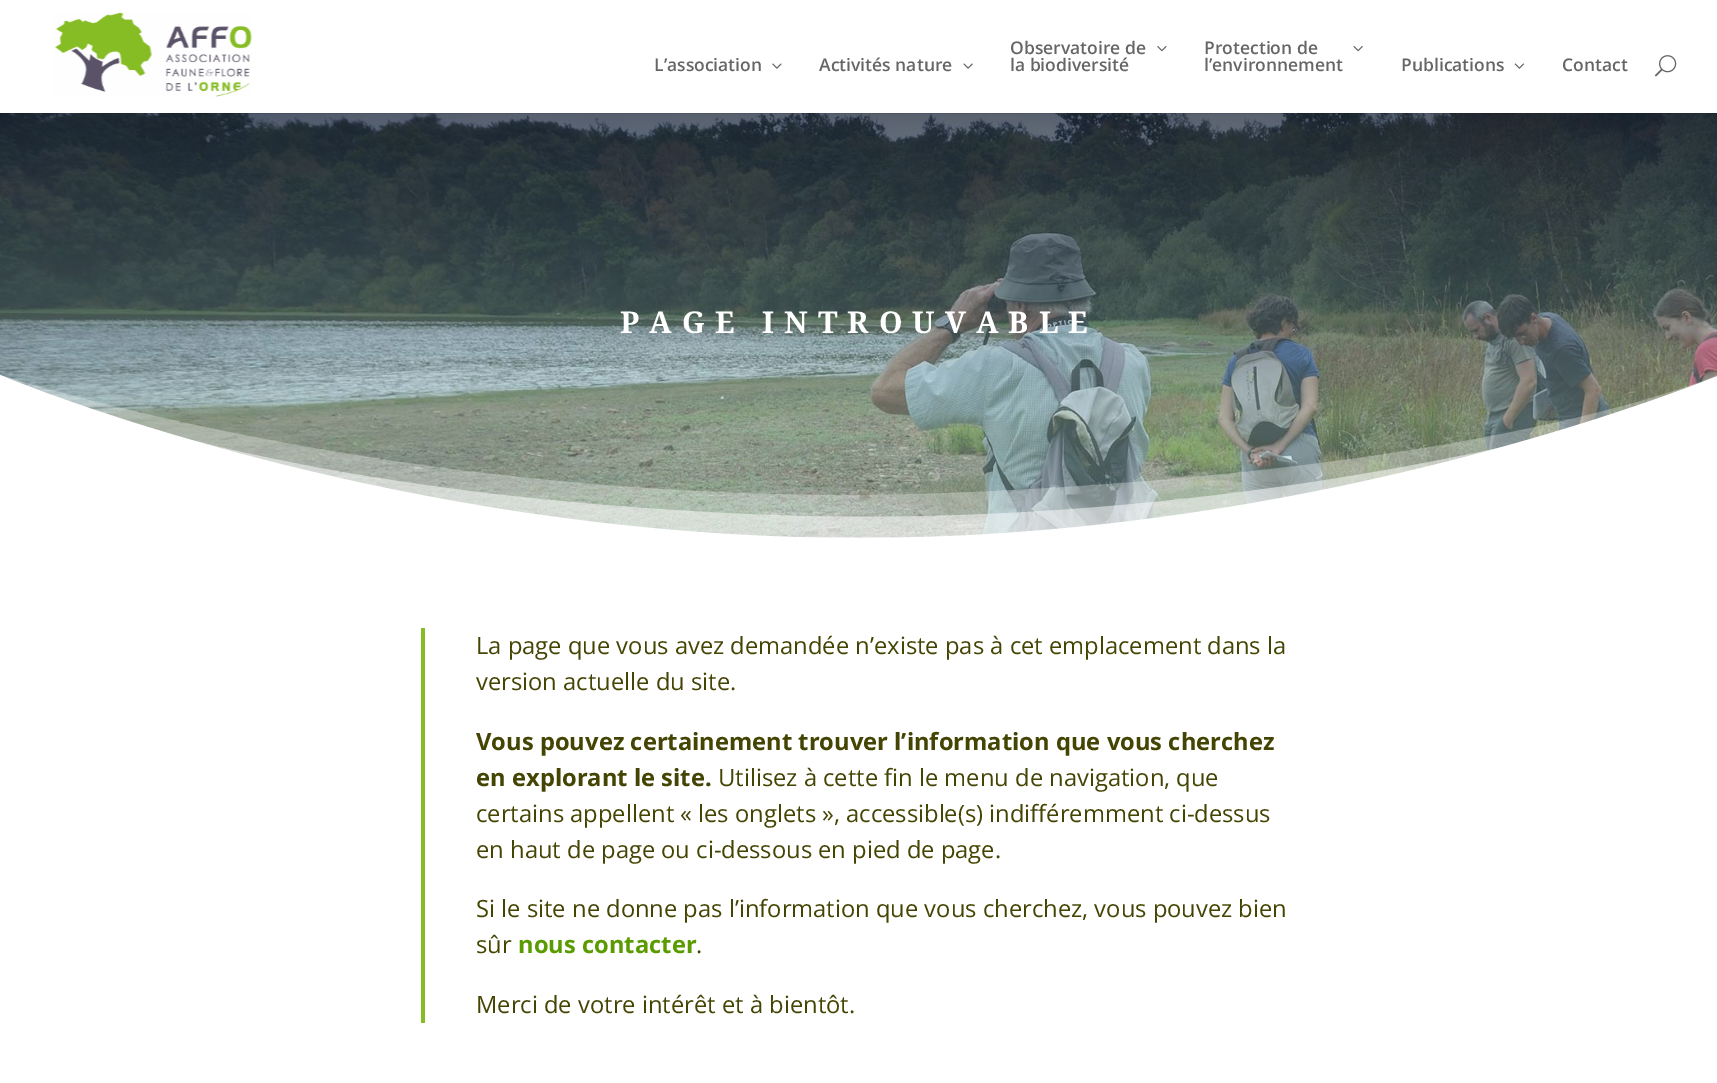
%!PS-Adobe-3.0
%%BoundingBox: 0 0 1717 1083
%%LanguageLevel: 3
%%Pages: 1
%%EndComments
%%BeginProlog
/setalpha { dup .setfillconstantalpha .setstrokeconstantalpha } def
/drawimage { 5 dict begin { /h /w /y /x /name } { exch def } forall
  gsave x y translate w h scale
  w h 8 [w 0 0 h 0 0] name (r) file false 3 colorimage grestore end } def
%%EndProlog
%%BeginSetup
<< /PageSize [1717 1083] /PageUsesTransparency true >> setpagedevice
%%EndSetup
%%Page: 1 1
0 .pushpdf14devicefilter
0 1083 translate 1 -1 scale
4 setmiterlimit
1 setgray
0 0 1717 1083 rectfill
(images/8.raw) 0 113 1717 425 drawimage
0.1 setalpha
0 setgray
newpath 0 112 moveto 0 114 lineto 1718 114 lineto 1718 1 lineto 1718 112 lineto closepath fill
1 setalpha
1 setgray
0 112 1717 1 rectfill
(images/1.raw) 54 12 198 85 drawimage
(images/2.raw) 772 63 10 6 drawimage
(images/3.raw) 963 63 10 6 drawimage
(images/4.raw) 1157 46 10 6 drawimage
(images/5.raw) 1353 46 10 6 drawimage
(images/6.raw) 1514 63 10 6 drawimage
(images/7.raw) 1655 55 22 22 drawimage
0.3 setalpha
newpath 973 492 moveto 436 517 0 375 0 375 curveto 0 538 lineto 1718 538 lineto 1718 375 lineto 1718 375 1510 468 973 492 curveto closepath fill
0.5 setalpha
newpath 747 514 moveto 1279 538 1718 391 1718 391 curveto 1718 538 lineto 0 538 lineto 0 375 lineto 0 375 214 490 747 514 curveto closepath fill
gsave
0 375 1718 163 rectclip
1 setalpha
newpath 859 538 moveto 1333 538 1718 375 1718 376 curveto 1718 539 lineto 0 539 lineto 0 375 lineto 0 375 384 538 859 538 curveto closepath fill
grestore
1 setalpha
0.525 0.737 0.145 setrgbcolor
421 628 4 395 rectfill
/OpenSans-SemiBold [17.5 0 0 -17.5 0 0] selectfont
0.4 setgray
654 71 moveto (L’association) show
819 71 moveto (Activités nature) show
1010 54 moveto (Observatoire de) show
1010 71 moveto (la biodiversité) show
1204 54 moveto (Protection de) show
1204 71 moveto (l’environnement) show
1401 71 moveto (Publications) show
1562 71 moveto (Contact) show
/NotoSerif-Bold [30 0 0 -30 0 0] selectfont
1 setgray
620 333 moveto 10 0 (PAGE INTROUVABLE) ashow
/OpenSans-Regular [23.75 0 0 -23.75 0 0] selectfont
0.267 0.267 0.012 setrgbcolor
476 654 moveto (La page que vous avez demandée n’existe pas à cet emplacement dans la) show
476 690 moveto (version actuelle du site.) show
/OpenSans-Bold [23.75 0 0 -23.75 0 0] selectfont
476 750 moveto (Vous pouvez certainement trouver l’information que vous cherchez) show
476 786 moveto (en explorant le site.) show
/OpenSans-Regular [23.75 0 0 -23.75 0 0] selectfont
718 786 moveto (Utilisez à cette fin le menu de navigation, que) show
476 822 moveto (certains appellent « les onglets », accessible\(s\) indifféremment ci-dessus) show
476 858 moveto (en haut de page ou ci-dessous en pied de page.) show
476 917 moveto (Si le site ne donne pas l’information que vous cherchez, vous pouvez bien) show
476 953 moveto (sûr) show
/OpenSans-Bold [23.75 0 0 -23.75 0 0] selectfont
0.353 0.608 0 setrgbcolor
518 953 moveto (nous contacter) show
/OpenSans-Regular [23.75 0 0 -23.75 0 0] selectfont
0.267 0.267 0.012 setrgbcolor
696 953 moveto (.) show
476 1013 moveto (Merci de votre intérêt et à bientôt.) show
.poppdf14devicefilter showpage
%%EOF
